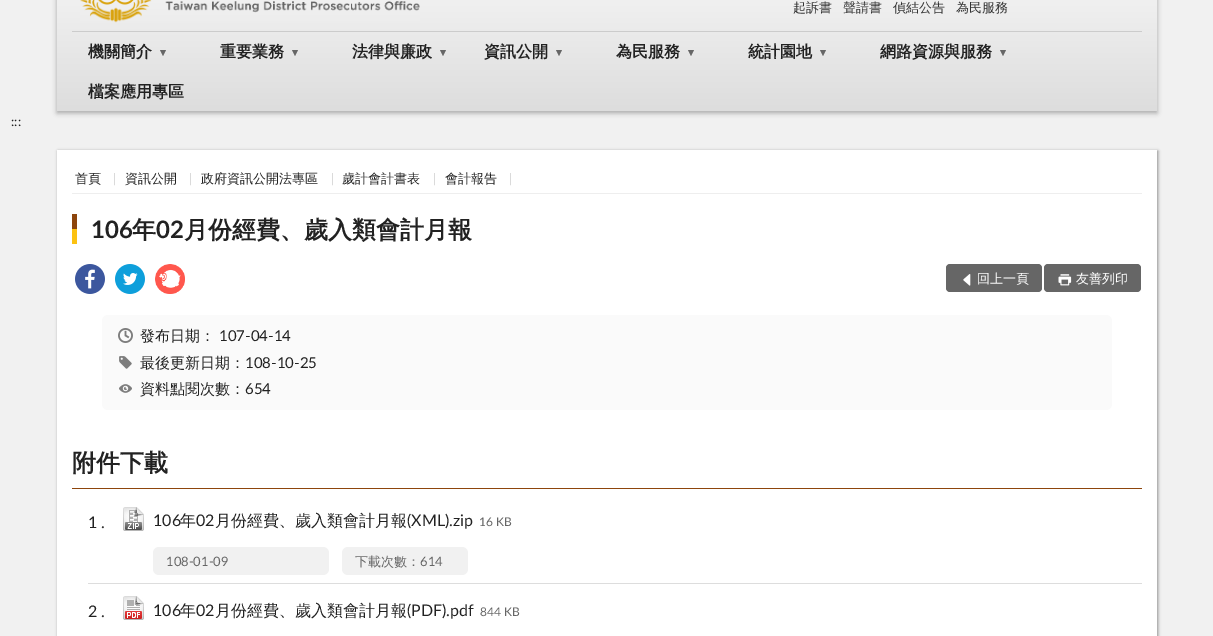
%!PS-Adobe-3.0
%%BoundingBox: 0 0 1213 636
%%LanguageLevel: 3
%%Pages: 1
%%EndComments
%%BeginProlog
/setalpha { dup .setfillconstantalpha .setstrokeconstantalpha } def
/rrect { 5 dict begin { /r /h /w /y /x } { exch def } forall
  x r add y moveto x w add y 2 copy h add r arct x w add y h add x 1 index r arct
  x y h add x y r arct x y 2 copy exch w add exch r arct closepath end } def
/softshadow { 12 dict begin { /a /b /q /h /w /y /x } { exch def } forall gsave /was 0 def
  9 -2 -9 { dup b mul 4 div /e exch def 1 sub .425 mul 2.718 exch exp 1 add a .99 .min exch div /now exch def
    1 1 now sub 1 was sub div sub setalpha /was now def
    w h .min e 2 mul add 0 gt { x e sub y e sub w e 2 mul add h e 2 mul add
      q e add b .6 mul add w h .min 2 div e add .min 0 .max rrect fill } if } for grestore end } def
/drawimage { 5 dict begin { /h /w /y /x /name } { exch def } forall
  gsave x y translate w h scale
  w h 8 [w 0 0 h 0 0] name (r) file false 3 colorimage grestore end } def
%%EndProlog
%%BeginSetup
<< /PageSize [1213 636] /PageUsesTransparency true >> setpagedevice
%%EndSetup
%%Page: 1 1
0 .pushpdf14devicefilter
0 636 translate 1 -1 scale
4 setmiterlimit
0.945 setgray
0 0 1213 636 rectfill
0 setgray
57 -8 1100 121 0 2.5 0.3 softshadow
gsave newpath 57 0 moveto 1157 0 lineto 1157 111 lineto 57 111 lineto closepath clip newpath
<< /ShadingType 2 /ColorSpace /DeviceRGB /Coords [607 -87 607 111] /Extend [true true] /Function << /FunctionType 2 /Domain [0 1] /C0 [1 1 1] /C1 [0.867 0.867 0.867] /N 1 >> >> shfill grestore
(images/1.raw) 80 0 340 23 drawimage
0.8 setgray
72 31 1070 1 rectfill
0.4 setgray
newpath 160 50 moveto 166 50 lineto 163 56 lineto closepath fill
newpath 292 50 moveto 298 50 lineto 295 56 lineto closepath fill
newpath 440 50 moveto 446 50 lineto 443 56 lineto closepath fill
newpath 556 50 moveto 562 50 lineto 559 56 lineto closepath fill
newpath 688 50 moveto 694 50 lineto 691 56 lineto closepath fill
newpath 820 50 moveto 826 50 lineto 823 56 lineto closepath fill
newpath 1000 50 moveto 1006 50 lineto 1003 56 lineto closepath fill
0 setgray
58 151 1100 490 0 1.5 0.4 softshadow
1 setgray
57 150 1100 486 rectfill
0.933 setgray
72 193 1070 1 rectfill
0.553 0.271 0.047 setrgbcolor
72 214 5 15 rectfill
0.988 0.761 0.067 setrgbcolor
72 229 5 15 rectfill
(images/2.raw) 75 264 30 30 drawimage
(images/3.raw) 115 264 30 30 drawimage
(images/4.raw) 155 264 30 30 drawimage
0.4 setgray
946 264 96 28 4 rrect fill
(images/5.raw) 963 274 8 12 drawimage
1044 264 97 28 4 rrect fill
(images/6.raw) 1058 274 14 12 drawimage
0.98 setgray
102 315 1010 95 6 rrect fill
(images/7.raw) 118 328 15 15 drawimage
(images/8.raw) 119 356 13 13 drawimage
(images/9.raw) 119 384 13 9 drawimage
0.553 0.271 0.047 setrgbcolor
72 488 1070 1 rectfill
0.867 setgray
88 583 1054 1 rectfill
(images/10.raw) 123 507 21 24 drawimage
0.945 setgray
153 547 176 28 6 rrect fill
342 547 126 28 6 rrect fill
(images/11.raw) 123 596 21 24 drawimage
/WenQuanYiZenHei-Medium [13 0 0 -13 0 0] selectfont
0.2 setgray
793 12 moveto (起訴書) show
843 12 moveto (聲請書) show
893 12 moveto (偵結公告) show
956 12 moveto (為民服務) show
/WenQuanYiZenHei-Bold [16 0 0 -16 0 0] selectfont
0.133 setgray
88 57 moveto (機關簡介) show
220 57 moveto (重要業務) show
352 57 moveto (法律與廉政) show
484 57 moveto (資訊公開) show
616 57 moveto (為民服務) show
748 57 moveto (統計園地) show
880 57 moveto (網路資源與服務) show
88 97 moveto (檔案應用專區) show
/Lato-Regular [13 0 0 -13 0 0] selectfont
11 126 moveto (:::) show
/WenQuanYiZenHei-Medium [13 0 0 -13 0 0] selectfont
75 183 moveto (首頁) show
/Lato-Regular [13 0 0 -13 0 0] selectfont
0.8 setgray
113 183 moveto (|) show
/WenQuanYiZenHei-Medium [13 0 0 -13 0 0] selectfont
0.133 setgray
125 183 moveto (資訊公開) show
/Lato-Regular [13 0 0 -13 0 0] selectfont
0.8 setgray
189 183 moveto (|) show
/WenQuanYiZenHei-Medium [13 0 0 -13 0 0] selectfont
0.133 setgray
201 183 moveto (政府資訊公開法專區) show
/Lato-Regular [13 0 0 -13 0 0] selectfont
0.8 setgray
331 183 moveto (|) show
/WenQuanYiZenHei-Medium [13 0 0 -13 0 0] selectfont
0.133 setgray
342 183 moveto (歲計會計書表) show
/Lato-Regular [13 0 0 -13 0 0] selectfont
0.8 setgray
433 183 moveto (|) show
/WenQuanYiZenHei-Medium [13 0 0 -13 0 0] selectfont
0.133 setgray
445 183 moveto (會計報告) show
/Lato-Regular [13 0 0 -13 0 0] selectfont
0.8 setgray
509 183 moveto (|) show
/Lato-Bold [24 0 0 -24 0 0] selectfont
0.133 setgray
91 238 moveto (106) show
/WenQuanYiZenHei-Bold [24 0 0 -24 0 0] selectfont
132 238 moveto (年) show
/Lato-Bold [24 0 0 -24 0 0] selectfont
156 238 moveto (02) show
/WenQuanYiZenHei-Bold [24 0 0 -24 0 0] selectfont
184 238 moveto (月份經費、歲入類會計月報) show
/WenQuanYiZenHei-Medium [13 0 0 -13 0 0] selectfont
1 setgray
977 283 moveto (回上一頁) show
1076 283 moveto (友善列印) show
/WenQuanYiZenHei-Medium [15 0 0 -15 0 0] selectfont
0.133 setgray
140 341 moveto (發布日期：) show
/Lato-Regular [15 0 0 -15 0 0] selectfont
219 341 moveto (107-04-14) show
/WenQuanYiZenHei-Medium [15 0 0 -15 0 0] selectfont
140 368 moveto (最後更新日期：) show
/Lato-Regular [15 0 0 -15 0 0] selectfont
245 368 moveto (108-10-25) show
/WenQuanYiZenHei-Medium [15 0 0 -15 0 0] selectfont
140 394 moveto (資料點閱次數：) show
/Lato-Regular [15 0 0 -15 0 0] selectfont
245 394 moveto (654) show
/WenQuanYiZenHei-Bold [24 0 0 -24 0 0] selectfont
72 471 moveto (附件下載) show
/Lato-Regular [16 0 0 -16 0 0] selectfont
88 528 moveto (1 .) show
153 526 moveto (106) show
/WenQuanYiZenHei-Medium [16 0 0 -16 0 0] selectfont
180 526 moveto (年) show
/Lato-Regular [16 0 0 -16 0 0] selectfont
196 526 moveto (02) show
/WenQuanYiZenHei-Medium [16 0 0 -16 0 0] selectfont
215 526 moveto (月份經費、歲入類會計月報) show
/Lato-Regular [16 0 0 -16 0 0] selectfont
407 526 moveto (\(XML\).zip) show
/Lato-Regular [12 0 0 -12 0 0] selectfont
0.4 setgray
479 526 moveto (16 KB) show
/Lato-Regular [13 0 0 -13 0 0] selectfont
166 566 moveto (108-01-09) show
/WenQuanYiZenHei-Medium [13 0 0 -13 0 0] selectfont
355 566 moveto (下載次數：) show
/Lato-Regular [13 0 0 -13 0 0] selectfont
420 566 moveto (614) show
/Lato-Regular [16 0 0 -16 0 0] selectfont
0.133 setgray
88 617 moveto (2 .) show
153 616 moveto (106) show
/WenQuanYiZenHei-Medium [16 0 0 -16 0 0] selectfont
180 616 moveto (年) show
/Lato-Regular [16 0 0 -16 0 0] selectfont
196 616 moveto (02) show
/WenQuanYiZenHei-Medium [16 0 0 -16 0 0] selectfont
215 616 moveto (月份經費、歲入類會計月報) show
/Lato-Regular [16 0 0 -16 0 0] selectfont
407 616 moveto (\(PDF\).pdf) show
/Lato-Regular [12 0 0 -12 0 0] selectfont
0.4 setgray
480 616 moveto (844 KB) show
.poppdf14devicefilter showpage
%%EOF
